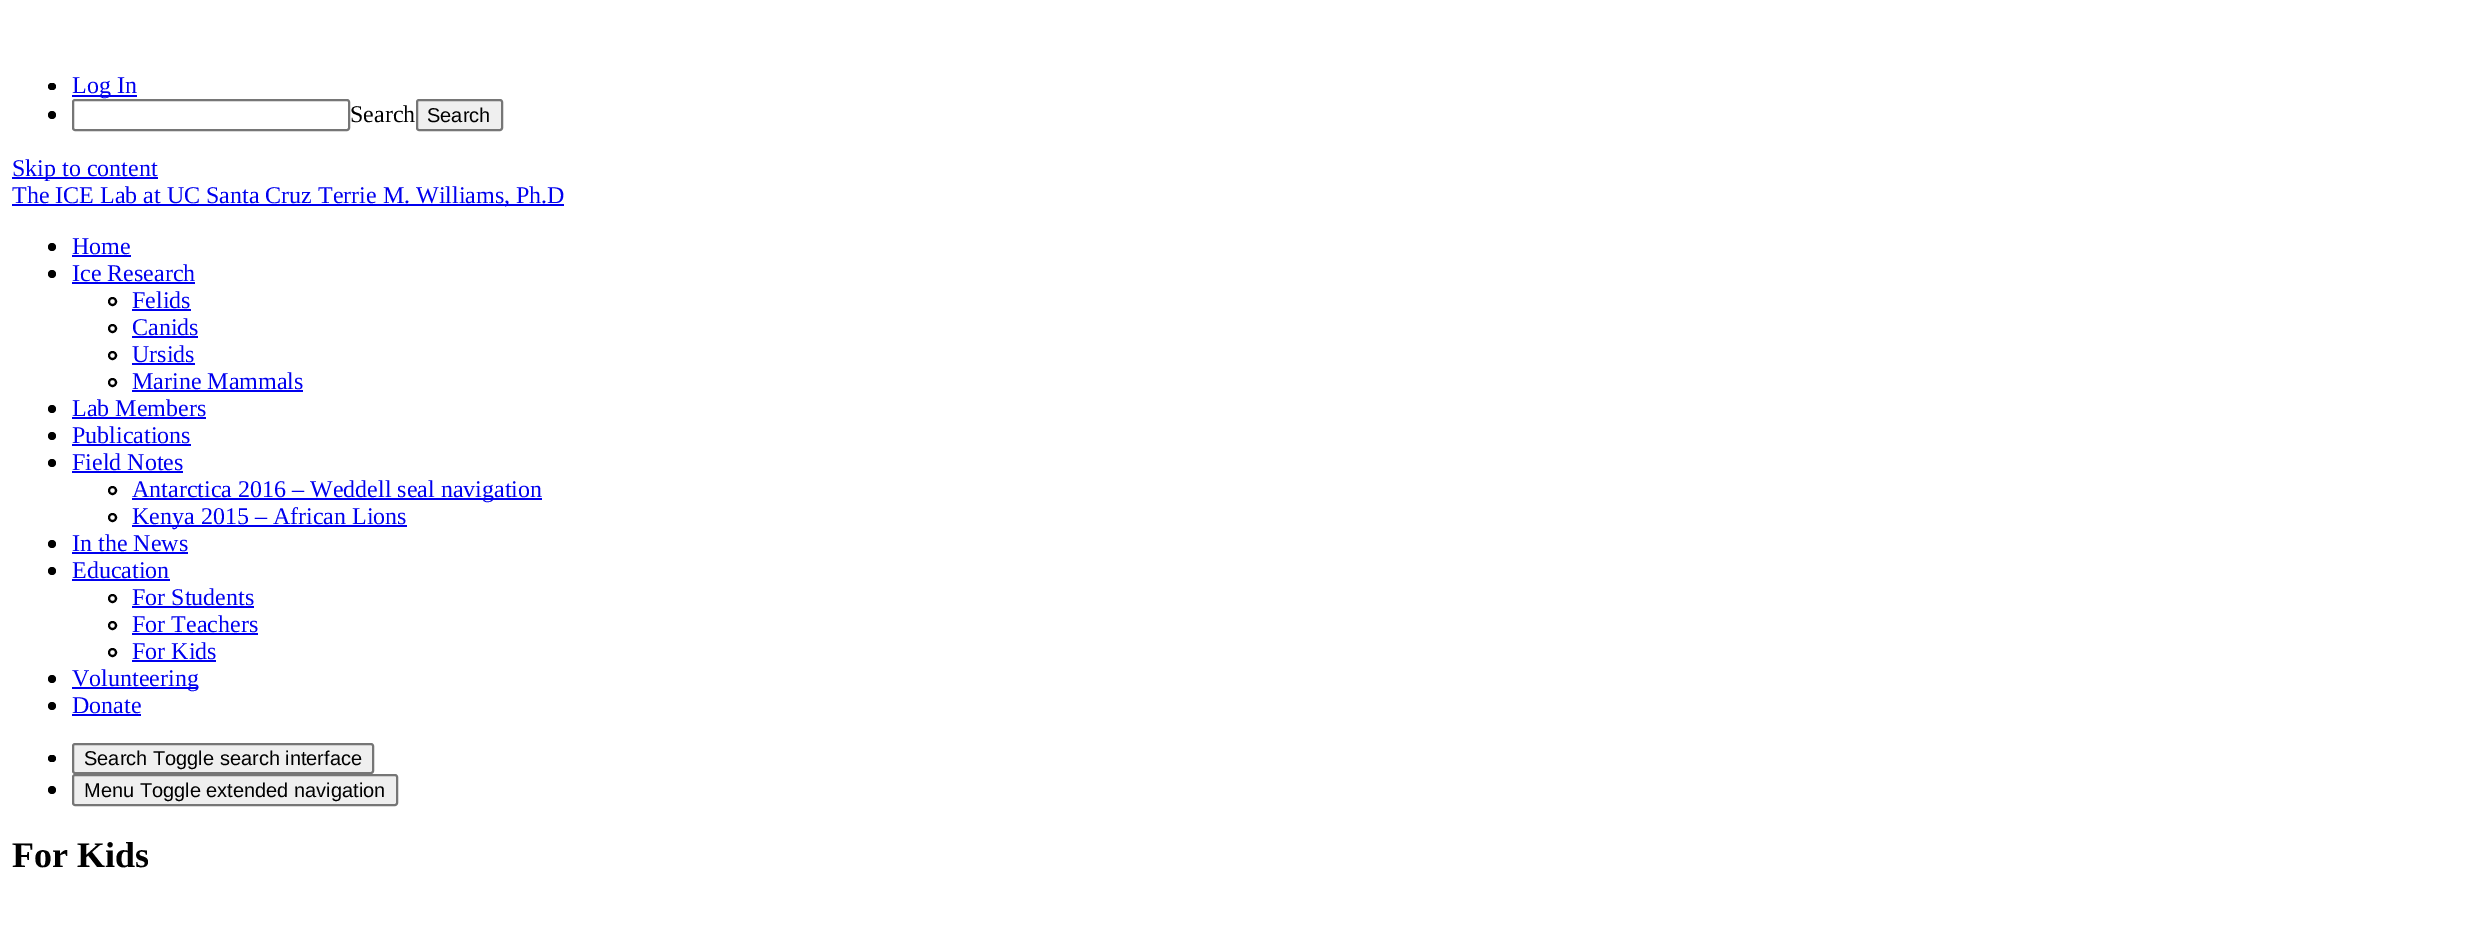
%!PS-Adobe-3.0
%%BoundingBox: 0 0 2474 937
%%LanguageLevel: 3
%%Pages: 1
%%EndComments
%%BeginProlog
/rrect { 5 dict begin { /r /h /w /y /x } { exch def } forall
  x r add y moveto x w add y 2 copy h add r arct x w add y h add x 1 index r arct
  x y h add x y r arct x y 2 copy exch w add exch r arct closepath end } def
%%EndProlog
%%BeginSetup
<< /PageSize [2474 937] >> setpagedevice
%%EndSetup
%%Page: 1 1
0 937 translate 1 -1 scale
4 setmiterlimit
1 setgray
0 0 2474 937 rectfill
0 setgray
48 83 8 7 3.5 rrect fill
0 0 0.933 setrgbcolor
72 95 65 2 rectfill
0 setgray
newpath 52 115 4 0 360 arc closepath fill
0.463 setgray
2 setlinewidth
73 100 276 30 2 rrect stroke
0.937 setgray
417 100 85 30 2 rrect gsave fill grestore
0.463 setgray
stroke
0 0 0.933 setrgbcolor
12 177 146 2 rectfill
12 204 552 2 rectfill
0 setgray
newpath 52 247 4 0 360 arc closepath fill
0 0 0.933 setrgbcolor
72 255 59 2 rectfill
0 setgray
newpath 52 274 4 0 360 arc closepath fill
0 0 0.933 setrgbcolor
72 282 123 2 rectfill
0 setgray
newpath 112.5 301.5 3.5 0 360 arc closepath stroke
0 0 0.933 setrgbcolor
132 309 59 2 rectfill
0 setgray
newpath 112.5 328.5 3.5 0 360 arc closepath stroke
0 0 0.933 setrgbcolor
132 336 66 2 rectfill
0 setgray
newpath 112.5 355.5 3.5 0 360 arc closepath stroke
0 0 0.933 setrgbcolor
132 363 63 2 rectfill
0 setgray
newpath 112.5 382.5 3.5 0 360 arc closepath stroke
0 0 0.933 setrgbcolor
132 390 171 2 rectfill
0 setgray
newpath 52 409 4 0 360 arc closepath fill
0 0 0.933 setrgbcolor
72 417 134 2 rectfill
0 setgray
newpath 52 436 4 0 360 arc closepath fill
0 0 0.933 setrgbcolor
72 444 119 2 rectfill
0 setgray
newpath 52 463 4 0 360 arc closepath fill
0 0 0.933 setrgbcolor
72 471 111 2 rectfill
0 setgray
newpath 112.5 490.5 3.5 0 360 arc closepath stroke
0 0 0.933 setrgbcolor
132 498 410 2 rectfill
0 setgray
newpath 112.5 517.5 3.5 0 360 arc closepath stroke
0 0 0.933 setrgbcolor
132 525 275 2 rectfill
0 setgray
newpath 52 544 4 0 360 arc closepath fill
0 0 0.933 setrgbcolor
72 552 116 2 rectfill
0 setgray
newpath 52 571 4 0 360 arc closepath fill
0 0 0.933 setrgbcolor
72 579 98 2 rectfill
0 setgray
newpath 112.5 598.5 3.5 0 360 arc closepath stroke
0 0 0.933 setrgbcolor
132 606 122 2 rectfill
0 setgray
newpath 112.5 625.5 3.5 0 360 arc closepath stroke
0 0 0.933 setrgbcolor
132 633 126 2 rectfill
0 setgray
newpath 112.5 652.5 3.5 0 360 arc closepath stroke
0 0 0.933 setrgbcolor
132 660 84 2 rectfill
0 setgray
newpath 52 679 4 0 360 arc closepath fill
0 0 0.933 setrgbcolor
72 687 126 2 rectfill
0 setgray
newpath 52 706 4 0 360 arc closepath fill
0 0 0.933 setrgbcolor
72 714 69 2 rectfill
0 setgray
48 755 8 7 3.5 rrect fill
0.937 setgray
73 744 300 29 2 rrect gsave fill grestore
0.463 setgray
stroke
0 setgray
newpath 52 790 4 0 360 arc closepath fill
0.937 setgray
73 775 324 30 2 rrect gsave fill grestore
0.463 setgray
stroke
/LiberationSerif-Regular [24 0 0 -24 0 0] selectfont
0 0 0.933 setrgbcolor
72 93 moveto (Log In) show
0 setgray
350 122 moveto (Search) show
/LiberationSans-Regular [20 0 0 -20 0 0] selectfont
427 122 moveto (Search) show
/LiberationSerif-Regular [24 0 0 -24 0 0] selectfont
0 0 0.933 setrgbcolor
12 176 moveto (Skip to content) show
12 203 moveto (The ICE Lab at UC Santa Cruz Terrie M. Williams, Ph.D) show
72 254 moveto (Home) show
72 281 moveto (Ice Research) show
132 308 moveto (Felids) show
132 335 moveto (Canids) show
132 362 moveto (Ursids) show
132 389 moveto (Marine Mammals) show
72 416 moveto (Lab Members) show
72 443 moveto (Publications) show
72 470 moveto (Field Notes) show
132 497 moveto (Antarctica 2016 – Weddell seal navigation) show
132 524 moveto (Kenya 2015 – African Lions) show
72 551 moveto (In the News) show
72 578 moveto (Education) show
132 605 moveto (For Students) show
132 632 moveto (For Teachers) show
132 659 moveto (For Kids) show
72 686 moveto (Volunteering) show
72 713 moveto (Donate) show
/LiberationSans-Regular [20 0 0 -20 0 0] selectfont
0 setgray
84 765 moveto (Search Toggle search interface) show
84 797 moveto (Menu Toggle extended navigation) show
/LiberationSerif-Bold [36 0 0 -36 0 0] selectfont
12 867 moveto (For Kids) show
showpage
%%EOF
